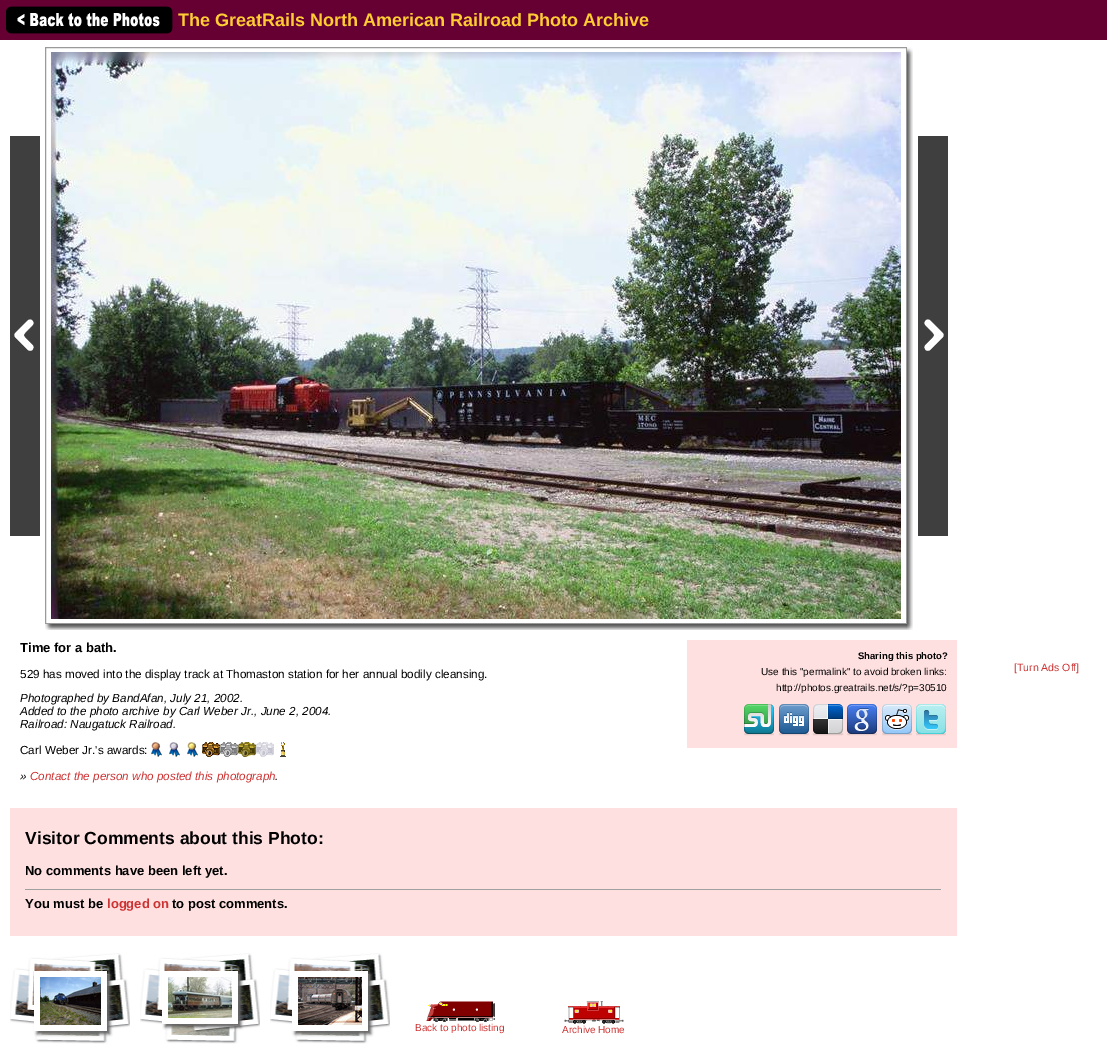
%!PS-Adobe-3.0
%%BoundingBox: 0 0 1107 1046
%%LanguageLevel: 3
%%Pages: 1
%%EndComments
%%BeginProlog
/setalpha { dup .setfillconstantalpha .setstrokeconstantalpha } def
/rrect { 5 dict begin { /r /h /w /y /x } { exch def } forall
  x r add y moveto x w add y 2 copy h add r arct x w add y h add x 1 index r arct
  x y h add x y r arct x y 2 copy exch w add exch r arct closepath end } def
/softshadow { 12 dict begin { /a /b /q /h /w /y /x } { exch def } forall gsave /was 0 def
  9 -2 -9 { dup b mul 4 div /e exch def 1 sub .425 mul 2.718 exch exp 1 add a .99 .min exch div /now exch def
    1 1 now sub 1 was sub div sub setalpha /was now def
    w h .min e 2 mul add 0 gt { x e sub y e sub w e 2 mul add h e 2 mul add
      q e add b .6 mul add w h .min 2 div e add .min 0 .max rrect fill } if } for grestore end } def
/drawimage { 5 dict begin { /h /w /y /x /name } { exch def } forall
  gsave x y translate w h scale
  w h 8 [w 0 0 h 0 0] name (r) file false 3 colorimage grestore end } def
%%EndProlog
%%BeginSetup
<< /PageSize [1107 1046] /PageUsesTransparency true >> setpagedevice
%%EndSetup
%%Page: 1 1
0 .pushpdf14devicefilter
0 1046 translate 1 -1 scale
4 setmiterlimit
1 setgray
0 0 1107 1046 rectfill
0.4 0 0.2 setrgbcolor
0 0 1107 40 rectfill
(images/1.raw) 6 6 167 28 drawimage
(images/2.raw) 10 136 30 400 drawimage
0.604 setgray
45.5 47.5 861 576 rectstroke
(images/3.raw) 51 52 850 567 drawimage
(images/4.raw) 907 47 6 577 drawimage
(images/5.raw) 918 136 30 400 drawimage
(images/6.raw) 45 624 862 6 drawimage
(images/7.raw) 907 624 6 6 drawimage
(images/8.raw) 151 742 11 15 drawimage
(images/9.raw) 169 742 11 15 drawimage
(images/10.raw) 187 742 11 15 drawimage
(images/11.raw) 202 742 18 15 drawimage
(images/12.raw) 220 742 18 15 drawimage
(images/13.raw) 238 742 18 15 drawimage
(images/14.raw) 256 742 18 15 drawimage
(images/15.raw) 280 742 6 15 drawimage
1 0.878 0.878 setrgbcolor
687 640 270 108 rectfill
(images/16.raw) 744 704 30 32 drawimage
(images/17.raw) 779 704 30 32 drawimage
(images/18.raw) 812 704 32 32 drawimage
(images/19.raw) 847 704 30 32 drawimage
(images/20.raw) 882 704 30 32 drawimage
(images/21.raw) 916 704 30 32 drawimage
10 808 947 128 rectfill
0.624 setgray
25 889 917 1 rectfill
0.933 setgray
941 889 1 1 rectfill
(images/22.raw) 10 953 120 91 drawimage
0.4 setgray
37 974 73 60 0 1.5 1 softshadow
1 setgray
34 971 73 60 rectfill
(images/23.raw) 40 977 61 48 drawimage
(images/22.raw) 140 953 120 91 drawimage
0.4 setgray
165 974 76 53 0 1.5 1 softshadow
1 setgray
162 971 76 53 rectfill
(images/24.raw) 168 977 64 41 drawimage
(images/22.raw) 270 953 120 91 drawimage
0.4 setgray
295 974 76 60 0 1.5 1 softshadow
1 setgray
292 971 76 60 rectfill
(images/25.raw) 298 977 64 48 drawimage
(images/26.raw) 426 1001 69 21 drawimage
(images/27.raw) 564 1001 60 23 drawimage
/LiberationSans-Bold [18 0 0 -18 0 0] selectfont
1 0.8 0.2 setrgbcolor
178 26 moveto (The GreatRails North American Railroad Photo Archive) show
/LiberationSans-Bold [13 0 0 -13 0 0] selectfont
0 setgray
20 652 moveto (Time for a bath.) show
/LiberationSans-Regular [11.7 0 0 -11.7 0 0] selectfont
20 678 moveto (529 has moved into the display track at Thomaston station for her annual bodily cleansing.) show
/LiberationSans-Italic [11.7 0 0 -11.7 0 0] selectfont
20 702 moveto (Photographed by BandAfan, July 21, 2002.) show
20 715 moveto (Added to the photo archive by Carl Weber Jr., June 2, 2004.) show
20 728 moveto (Railroad: Naugatuck Railroad.) show
/LiberationSans-Regular [11.7 0 0 -11.7 0 0] selectfont
20 754 moveto (Carl Weber Jr.'s awards:) show
/LiberationSans-Italic [11.7 0 0 -11.7 0 0] selectfont
20 780 moveto (») show
0.8 0.2 0.2 setrgbcolor
30 780 moveto (Contact the person who posted this photograph) show
0 setgray
275 780 moveto (.) show
/LiberationSans-Bold [9.5 0 0 -9.5 0 0] selectfont
858 659 moveto (Sharing this photo?) show
/LiberationSans-Regular [10 0 0 -10 0 0] selectfont
761 675 moveto (Use this "permalink" to avoid broken links:) show
776 691 moveto (http://photos.greatrails.net/s/?p=30510) show
/LiberationSans-Regular [10.5 0 0 -10.5 0 0] selectfont
0.8 0.2 0.2 setrgbcolor
1014 671 moveto ([Turn Ads Off]) show
/LiberationSans-Bold [17.5 0 0 -17.5 0 0] selectfont
0 setgray
25 844 moveto (Visitor Comments about this Photo:) show
/LiberationSans-Bold [13 0 0 -13 0 0] selectfont
25 875 moveto (No comments have been left yet.) show
25 908 moveto (You must be) show
0.8 0.2 0.2 setrgbcolor
107 908 moveto (logged on) show
0 setgray
172 908 moveto (to post comments.) show
/LiberationSans-Regular [10 0 0 -10 0 0] selectfont
0.8 0.2 0.2 setrgbcolor
415 1031 moveto (Back to photo listing) show
562 1033 moveto (Archive Home) show
.poppdf14devicefilter showpage
%%EOF
